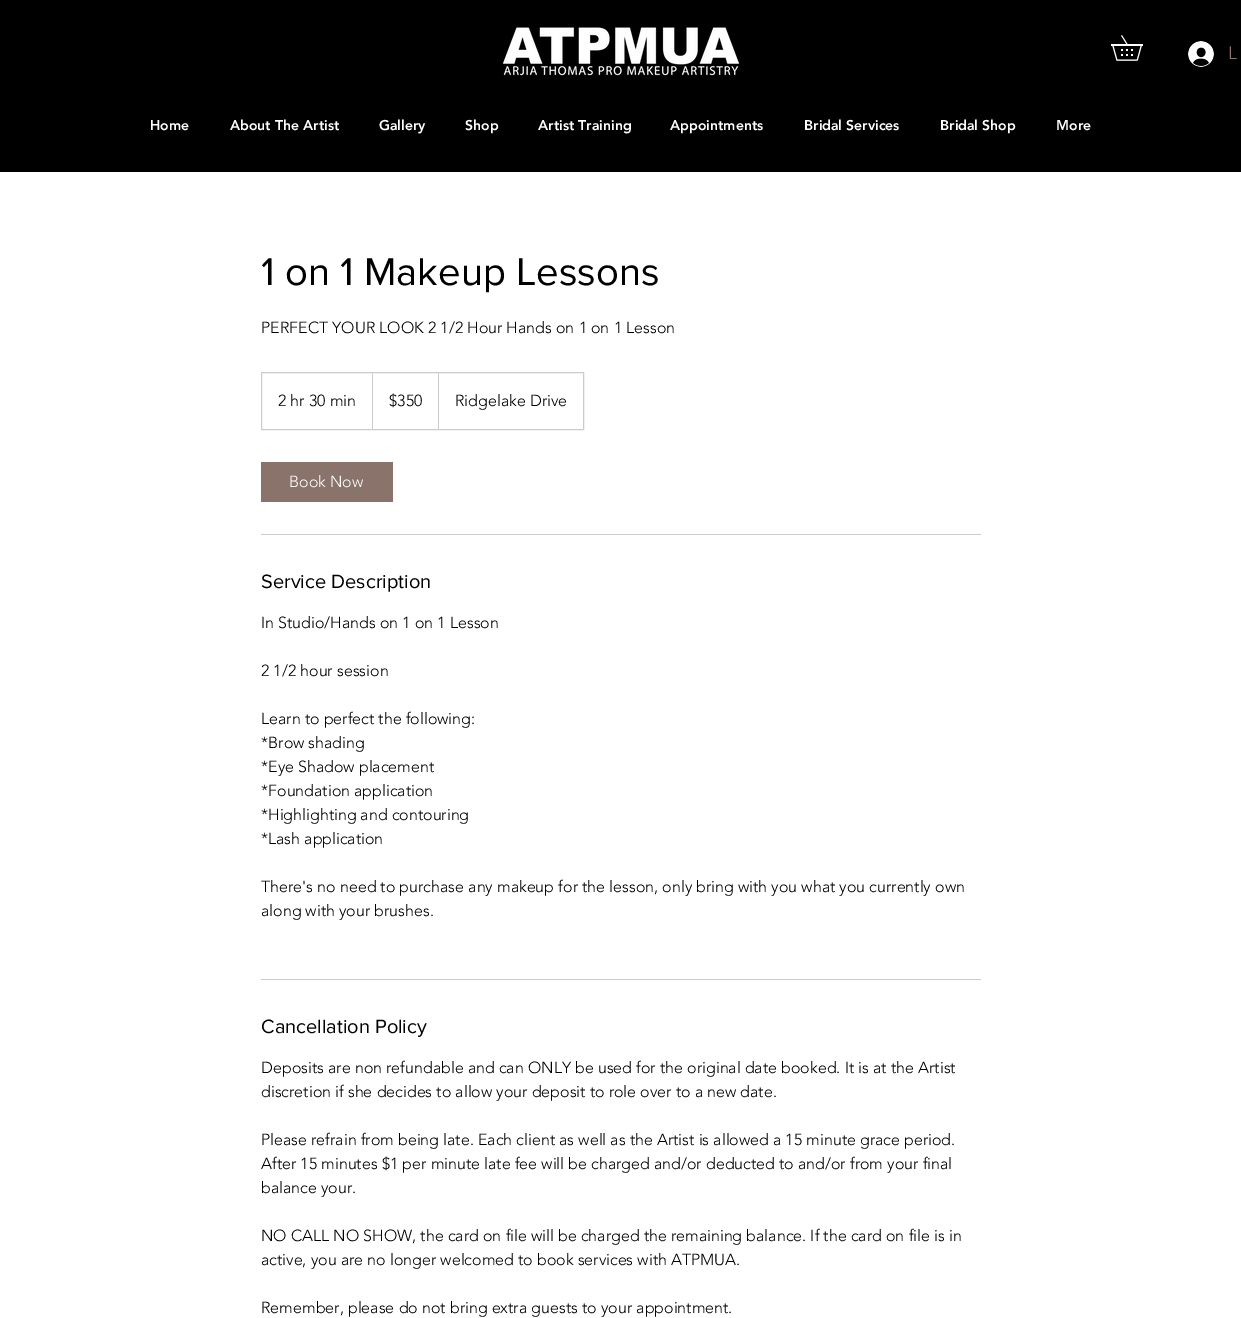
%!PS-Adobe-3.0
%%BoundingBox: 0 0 1241 1318
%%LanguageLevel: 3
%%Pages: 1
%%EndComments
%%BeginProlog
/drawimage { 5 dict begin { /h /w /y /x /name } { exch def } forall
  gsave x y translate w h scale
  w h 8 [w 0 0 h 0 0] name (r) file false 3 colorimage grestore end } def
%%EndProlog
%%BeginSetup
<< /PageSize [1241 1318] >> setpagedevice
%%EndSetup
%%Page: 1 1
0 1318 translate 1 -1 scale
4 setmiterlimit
1 setgray
0 0 1241 1318 rectfill
0 setgray
0 0 1241 172 rectfill
(images/1.raw) 502 27 238 49 drawimage
(images/2.raw) 1111 35 32 26 drawimage
(images/3.raw) 1188 41 26 26 drawimage
0.8 setgray
261.5 372.5 322 57 rectstroke
newpath 372 429 moveto 372 372 lineto 373 373 lineto 373 429 lineto closepath fill
newpath 438 429 moveto 438 372 lineto 439 373 lineto 439 429 lineto closepath fill
0.537 0.451 0.416 setrgbcolor
261 462 132 40 rectfill
0.8 setgray
261 534 720 1 rectfill
261 979 720 1 rectfill
/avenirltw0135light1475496-Light [18 0 0 -18 0 0] selectfont
0.537 0.451 0.416 setrgbcolor
1228 59 moveto (L) show
/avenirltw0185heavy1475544-Black [14 0 0 -14 0 0] selectfont
1 setgray
150 130 moveto (Home) show
230 130 moveto (About The Artist) show
379 130 moveto (Gallery) show
465 130 moveto (Shop) show
538 130 moveto (Artist Training) show
670 130 moveto (Appointments) show
804 130 moveto (Bridal Services) show
940 130 moveto (Bridal Shop) show
1056 130 moveto (More) show
/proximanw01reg-Regular [40 0 0 -40 0 0] selectfont
0 setgray
261 285 moveto (1 on 1 Makeup Lessons) show
/avenirltw0135light1475496-Light [16 0 0 -16 0 0] selectfont
261 333 moveto (PERFECT YOUR LOOK 2 1/2 Hour Hands on 1 on 1 Lesson) show
278 406 moveto (2 hr 30 min) show
389 406 moveto ($350) show
455 406 moveto (Ridgelake Drive) show
1 setgray
289 487 moveto (Book Now) show
/proximanw01reg-Regular [20 0 0 -20 0 0] selectfont
0 setgray
261 588 moveto (Service Description) show
/avenirltw0135light1475496-Light [16 0 0 -16 0 0] selectfont
261 628 moveto (In Studio/Hands on 1 on 1 Lesson) show
261 676 moveto (2 1/2 hour session) show
261 724 moveto (Learn to perfect the following:) show
261 748 moveto (*Brow shading) show
261 772 moveto (*Eye Shadow placement) show
261 796 moveto (*Foundation application) show
261 820 moveto (*Highlighting and contouring) show
261 844 moveto (*Lash application) show
261 892 moveto (There's no need to purchase any makeup for the lesson, only bring with you what you currently own) show
261 916 moveto (along with your brushes.) show
/proximanw01reg-Regular [20 0 0 -20 0 0] selectfont
261 1033 moveto (Cancellation Policy) show
/avenirltw0135light1475496-Light [16 0 0 -16 0 0] selectfont
261 1073 moveto (Deposits are non refundable and can ONLY be used for the original date booked. It is at the Artist) show
261 1097 moveto (discretion if she decides to allow your deposit to role over to a new date.) show
261 1145 moveto (Please refrain from being late. Each client as well as the Artist is allowed a 15 minute grace period.) show
261 1169 moveto (After 15 minutes $1 per minute late fee will be charged and/or deducted to and/or from your final) show
261 1193 moveto (balance your.) show
261 1241 moveto (NO CALL NO SHOW, the card on file will be charged the remaining balance. If the card on file is in) show
261 1265 moveto (active, you are no longer welcomed to book services with ATPMUA.) show
261 1313 moveto (Remember, please do not bring extra guests to your appointment.) show
showpage
%%EOF
